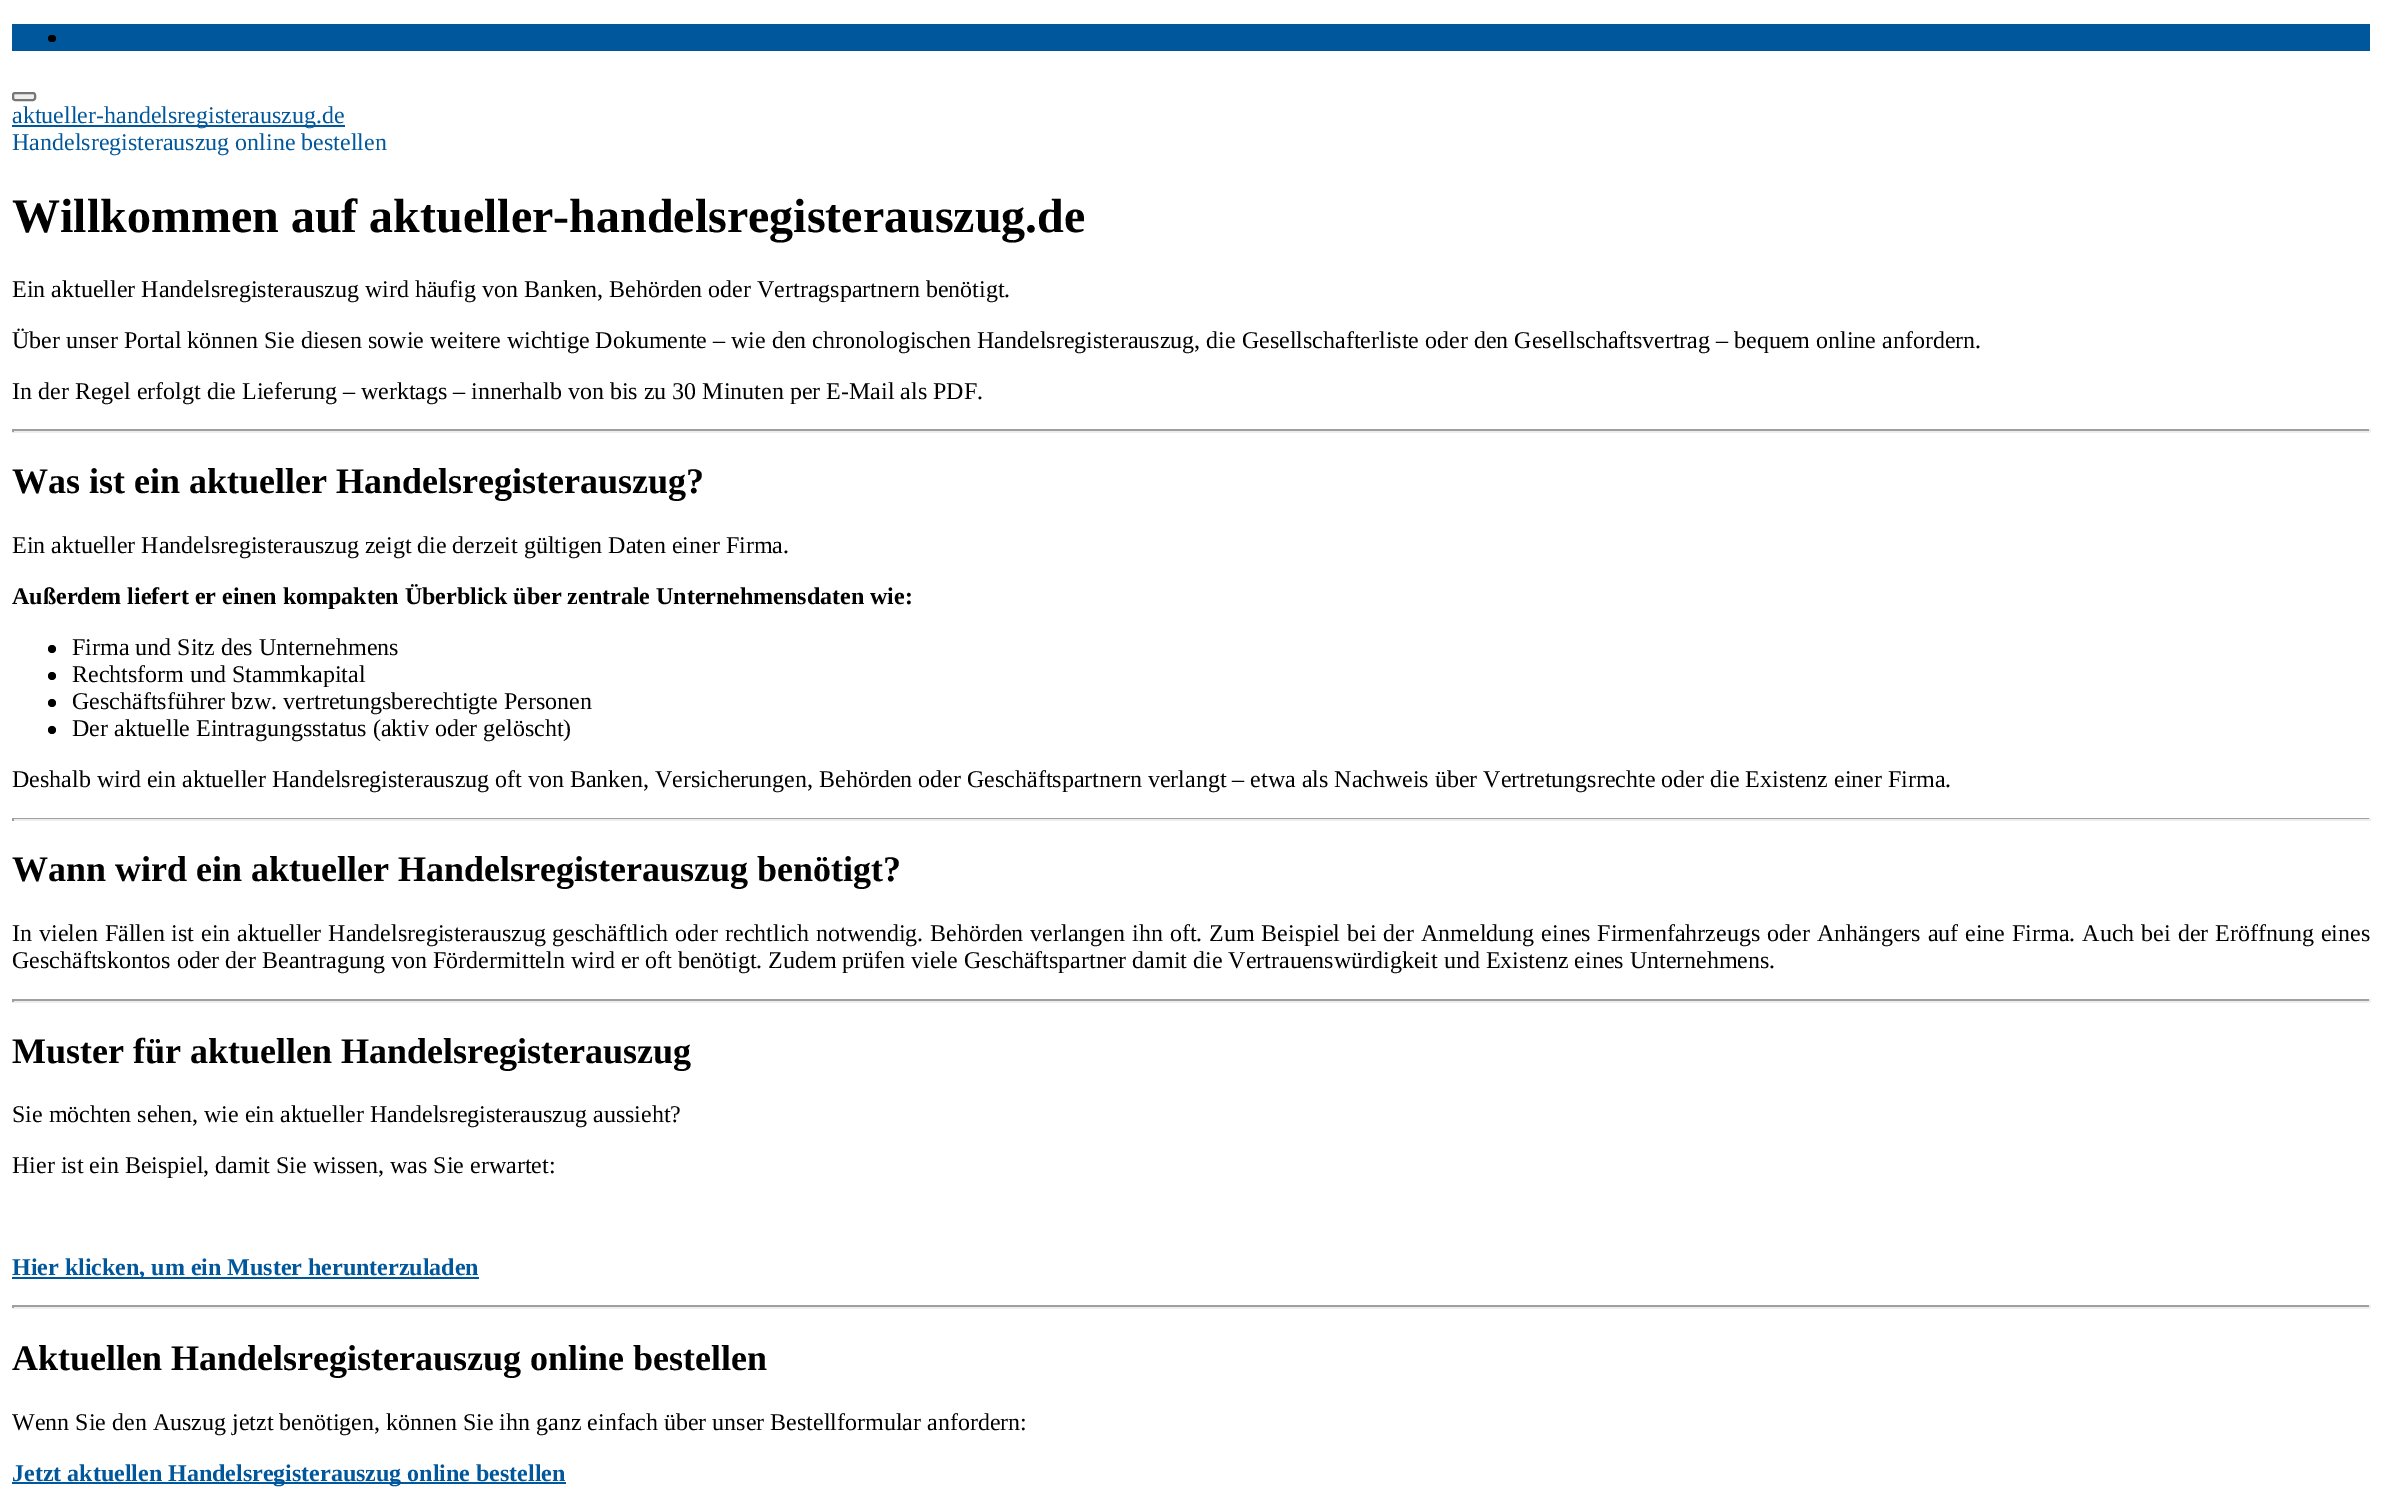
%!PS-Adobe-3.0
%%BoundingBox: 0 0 2382 1491
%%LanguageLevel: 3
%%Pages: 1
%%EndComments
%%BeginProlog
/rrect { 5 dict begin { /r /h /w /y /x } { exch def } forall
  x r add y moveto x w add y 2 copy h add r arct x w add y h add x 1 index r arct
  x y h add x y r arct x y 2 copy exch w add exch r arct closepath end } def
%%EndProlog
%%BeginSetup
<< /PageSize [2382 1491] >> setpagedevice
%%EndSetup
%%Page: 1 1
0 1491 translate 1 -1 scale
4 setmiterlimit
1 setgray
0 0 2382 1491 rectfill
0.004 0.341 0.608 setrgbcolor
12 24 2358 27 rectfill
0 setgray
48 35 8 7 3.5 rrect fill
0.937 setgray
13 93 22 7 2 rrect gsave fill grestore
0.463 setgray
2 setlinewidth
stroke
0.004 0.341 0.608 setrgbcolor
12 125 333 2 rectfill
0.624 setgray
12 429 2358 2 rectfill
0.933 setgray
2369 429 2 3 rectfill
12 431 2358 2 rectfill
0.624 setgray
12 429 2 3 rectfill
0 setgray
newpath 52 649 4 0 360 arc closepath fill
newpath 52 676 4 0 360 arc closepath fill
newpath 52 703 4 0 360 arc closepath fill
newpath 52 730 4 0 360 arc closepath fill
0.624 setgray
12 818 2358 1 rectfill
0.933 setgray
2369 818 2 3 rectfill
12 819 2358 2 rectfill
0.624 setgray
12 818 2 3 rectfill
12 999 2358 2 rectfill
0.933 setgray
2369 999 2 3 rectfill
12 1001 2358 2 rectfill
0.624 setgray
12 999 2 3 rectfill
0.004 0.341 0.608 setrgbcolor
12 1277 467 2 rectfill
0.624 setgray
12 1305 2358 2 rectfill
0.933 setgray
2369 1305 2 3 rectfill
12 1307 2358 2 rectfill
0.624 setgray
12 1305 2 3 rectfill
0.004 0.341 0.608 setrgbcolor
12 1482 554 2 rectfill
/LiberationSerif-Regular [24 0 0 -24 0 0] selectfont
12 123 moveto (aktueller-handelsregisterauszug.de) show
12 150 moveto (Handelsregisterauszug online bestellen) show
/LiberationSerif-Bold [48 0 0 -48 0 0] selectfont
0 setgray
12 232 moveto (Willkommen auf aktueller-handelsregisterauszug.de) show
/LiberationSerif-Regular [24 0 0 -24 0 0] selectfont
12 297 moveto (Ein aktueller Handelsregisterauszug wird häufig von Banken, Behörden oder Vertragspartnern benötigt.) show
12 348 moveto (Über unser Portal können Sie diesen sowie weitere wichtige Dokumente – wie den chronologischen Handelsregisterauszug, die Gesellschafterliste oder den Gesellschaftsvertrag – bequem online anfordern.) show
12 399 moveto (In der Regel erfolgt die Lieferung – werktags – innerhalb von bis zu 30 Minuten per E-Mail als PDF.) show
/LiberationSerif-Bold [36 0 0 -36 0 0] selectfont
12 493 moveto (Was ist ein aktueller Handelsregisterauszug?) show
/LiberationSerif-Regular [24 0 0 -24 0 0] selectfont
12 553 moveto (Ein aktueller Handelsregisterauszug zeigt die derzeit gültigen Daten einer Firma.) show
/LiberationSerif-Bold [24 0 0 -24 0 0] selectfont
12 604 moveto (Außerdem liefert er einen kompakten Überblick über zentrale Unternehmensdaten wie:) show
/LiberationSerif-Regular [24 0 0 -24 0 0] selectfont
72 655 moveto (Firma und Sitz des Unternehmens) show
72 682 moveto (Rechtsform und Stammkapital) show
72 709 moveto (Geschäftsführer bzw. vertretungsberechtigte Personen) show
72 736 moveto (Der aktuelle Eintragungsstatus \(aktiv oder gelöscht\)) show
12 787 moveto (Deshalb wird ein aktueller Handelsregisterauszug oft von Banken, Versicherungen, Behörden oder Geschäftspartnern verlangt – etwa als Nachweis über Vertretungsrechte oder die Existenz einer Firma.) show
/LiberationSerif-Bold [36 0 0 -36 0 0] selectfont
12 881 moveto (Wann wird ein aktueller Handelsregisterauszug benötigt?) show
/LiberationSerif-Regular [24 0 0 -24 0 0] selectfont
12 941 moveto 0.95 0 32 (In vielen Fällen ist ein aktueller Handelsregisterauszug geschäftlich oder rechtlich notwendig. Behörden verlangen ihn oft. Zum Beispiel bei der Anmeldung eines Firmenfahrzeugs oder Anhängers auf eine Firma. Auch bei der Eröffnung eines) widthshow
12 968 moveto (Geschäftskontos oder der Beantragung von Fördermitteln wird er oft benötigt. Zudem prüfen viele Geschäftspartner damit die Vertrauenswürdigkeit und Existenz eines Unternehmens.) show
/LiberationSerif-Bold [36 0 0 -36 0 0] selectfont
12 1063 moveto (Muster für aktuellen Handelsregisterauszug) show
/LiberationSerif-Regular [24 0 0 -24 0 0] selectfont
12 1122 moveto (Sie möchten sehen, wie ein aktueller Handelsregisterauszug aussieht?) show
12 1173 moveto (Hier ist ein Beispiel, damit Sie wissen, was Sie erwartet:) show
/LiberationSerif-Bold [24 0 0 -24 0 0] selectfont
0.004 0.341 0.608 setrgbcolor
12 1275 moveto (Hier klicken, um ein Muster herunterzuladen) show
/LiberationSerif-Bold [36 0 0 -36 0 0] selectfont
0 setgray
12 1370 moveto (Aktuellen Handelsregisterauszug online bestellen) show
/LiberationSerif-Regular [24 0 0 -24 0 0] selectfont
12 1430 moveto (Wenn Sie den Auszug jetzt benötigen, können Sie ihn ganz einfach über unser Bestellformular anfordern:) show
/LiberationSerif-Bold [24 0 0 -24 0 0] selectfont
0.004 0.341 0.608 setrgbcolor
12 1481 moveto (Jetzt aktuellen Handelsregisterauszug online bestellen) show
showpage
%%EOF
